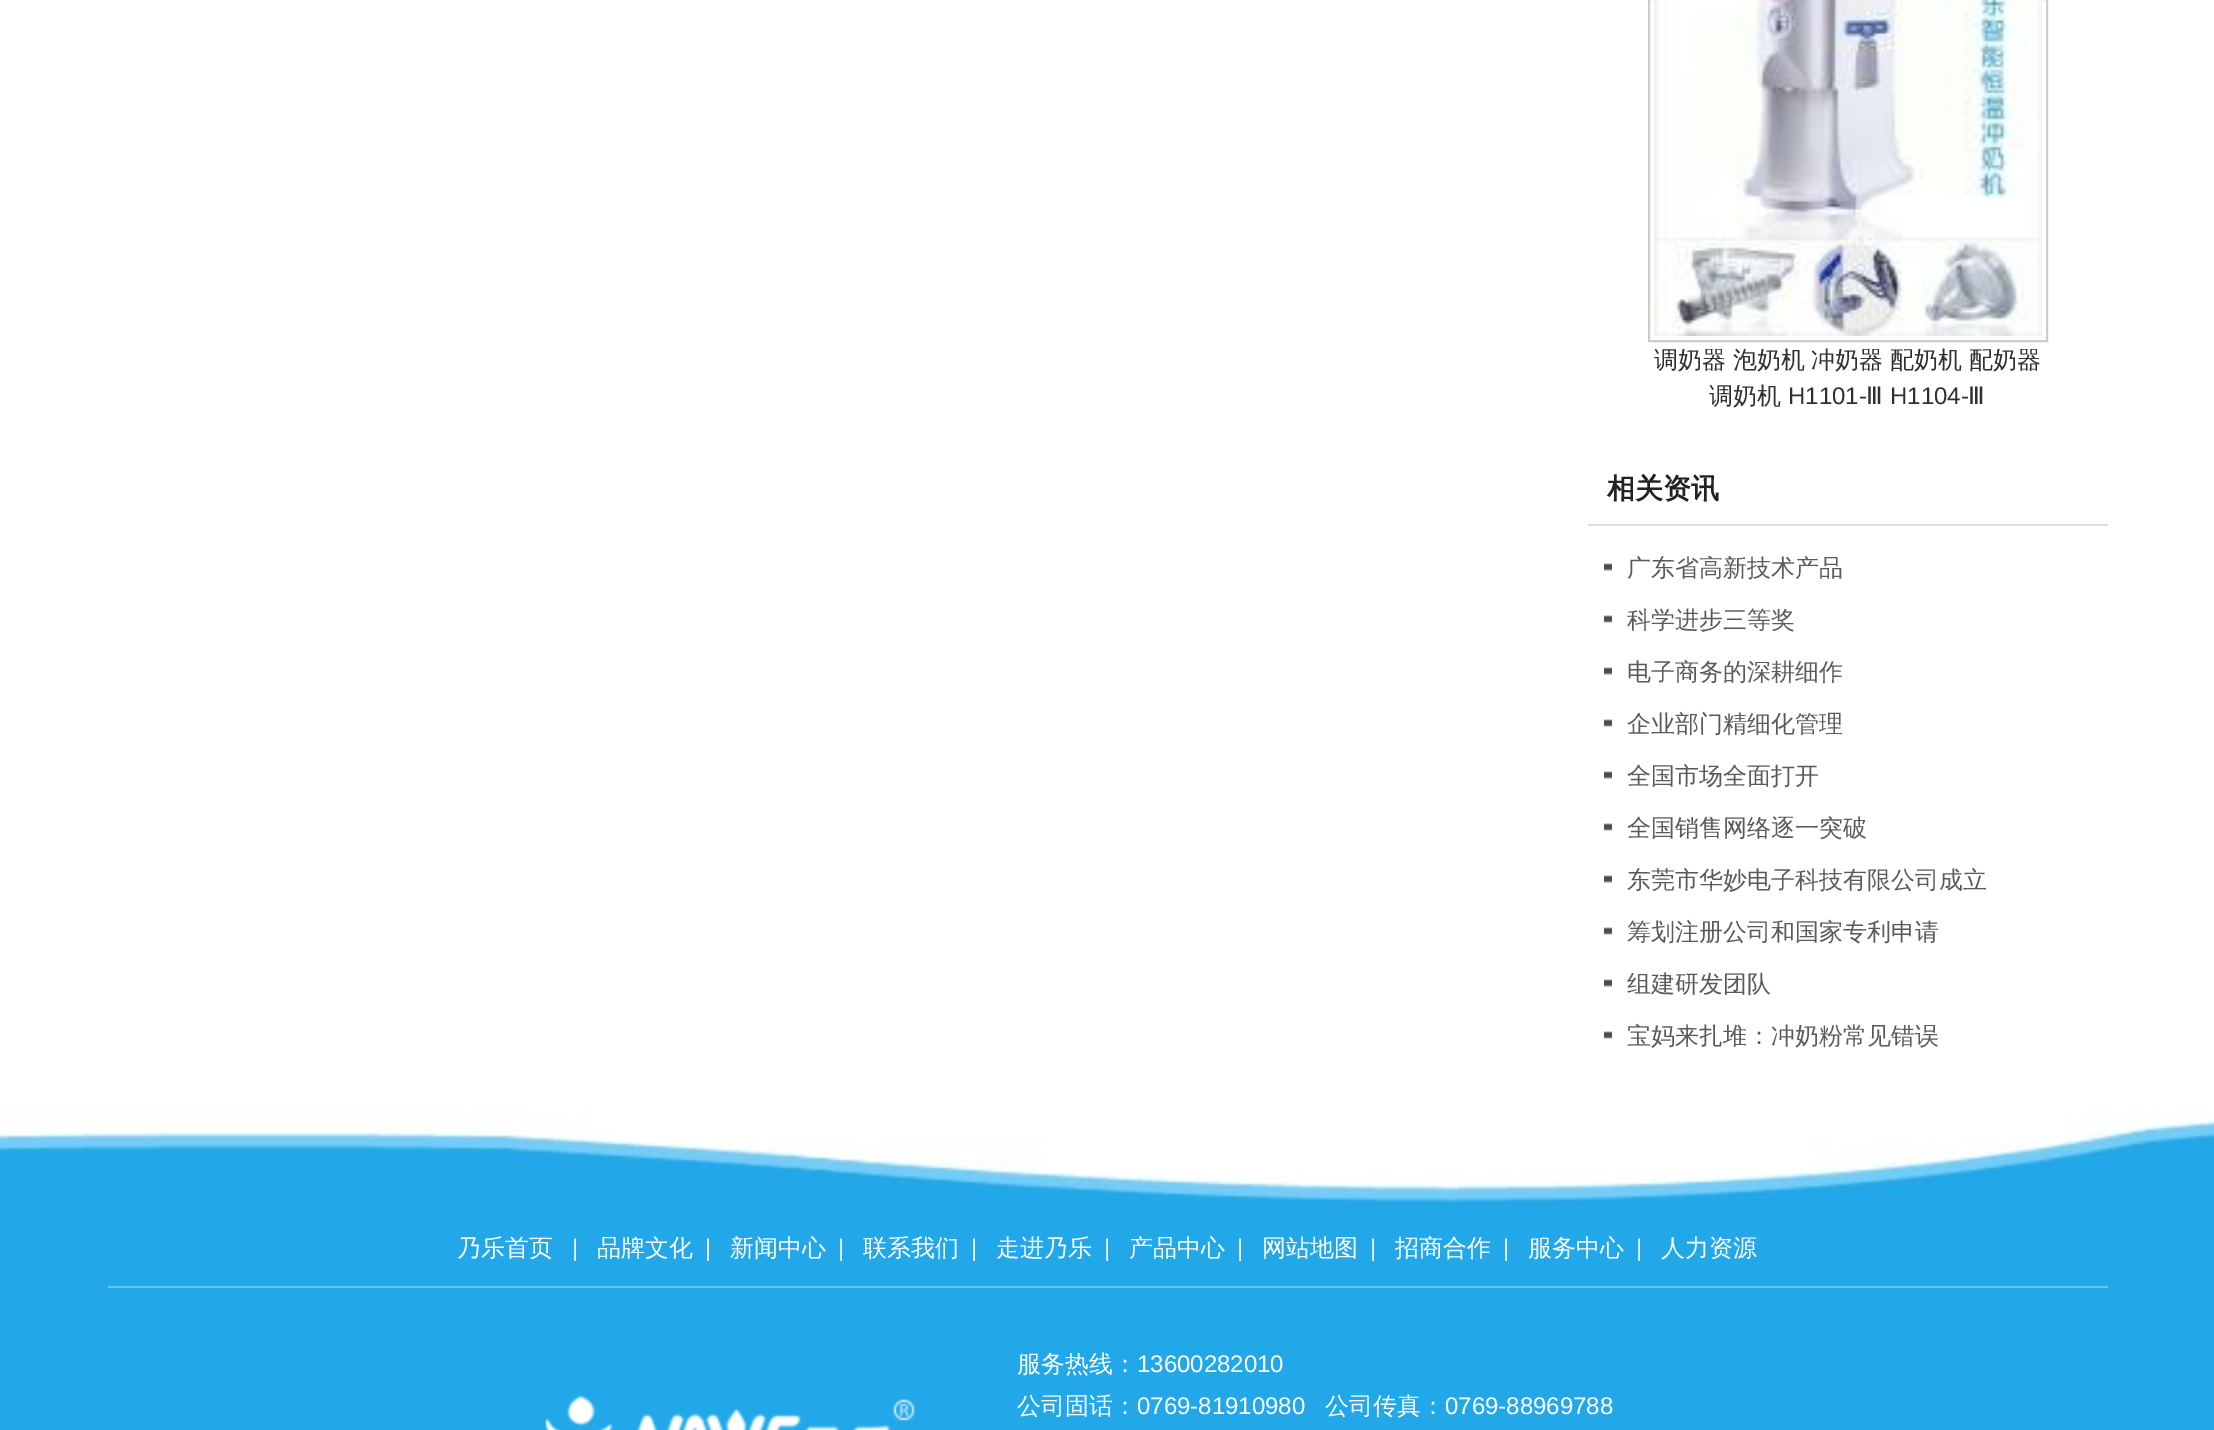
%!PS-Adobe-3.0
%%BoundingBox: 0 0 2214 1430
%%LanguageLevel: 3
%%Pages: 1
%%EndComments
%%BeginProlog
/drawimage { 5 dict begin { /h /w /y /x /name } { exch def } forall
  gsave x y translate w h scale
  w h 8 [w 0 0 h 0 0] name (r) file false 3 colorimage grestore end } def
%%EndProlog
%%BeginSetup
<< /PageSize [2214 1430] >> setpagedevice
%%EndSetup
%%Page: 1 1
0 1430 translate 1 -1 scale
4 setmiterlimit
1 setgray
0 0 2214 1430 rectfill
0.8 setgray
2 setlinewidth
1649 -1 398 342 rectstroke
(images/1.raw) 1654 0 388 336 drawimage
0.875 0.867 0.867 setrgbcolor
1588 524 520 2 rectfill
(images/2.raw) 1604 563 8 8 drawimage
(images/2.raw) 1604 615 8 8 drawimage
(images/2.raw) 1604 667 8 8 drawimage
(images/2.raw) 1604 719 8 8 drawimage
(images/2.raw) 1604 771 8 8 drawimage
(images/2.raw) 1604 823 8 8 drawimage
(images/2.raw) 1604 875 8 8 drawimage
(images/2.raw) 1604 927 8 8 drawimage
(images/2.raw) 1604 979 8 8 drawimage
(images/2.raw) 1604 1031 8 8 drawimage
0.133 0.659 0.914 setrgbcolor
0 1206 2214 224 rectfill
(images/3.raw) 0 1110 2214 96 drawimage
0.435 0.757 0.906 setrgbcolor
108 1286 2000 2 rectfill
(images/4.raw) 545 1395 370 35 drawimage
/WenQuanYiZenHei-Medium [24 0 0 -24 0 0] selectfont
0.188 setgray
1654 368 moveto -0.5 0 32 (调奶器 泡奶机 冲奶器 配奶机 配奶器) widthshow
1709 404 moveto (调奶机) show
/LiberationSans-Regular [24 0 0 -24 0 0] selectfont
1788 404 moveto (H1101-) show
/DejaVuSans-Regular [24 0 0 -24 0 0] selectfont
1866 404 moveto (Ⅲ) show
/LiberationSans-Regular [24 0 0 -24 0 0] selectfont
1890 404 moveto (H1104-) show
/DejaVuSans-Regular [24 0 0 -24 0 0] selectfont
1968 404 moveto (Ⅲ) show
/WenQuanYiZenHei-Bold [28 0 0 -28 0 0] selectfont
0.133 setgray
1607 498 moveto (相关资讯) show
/WenQuanYiZenHei-Medium [24 0 0 -24 0 0] selectfont
0.357 0.353 0.353 setrgbcolor
1627 576 moveto (广东省高新技术产品) show
1627 628 moveto (科学进步三等奖) show
1627 680 moveto (电子商务的深耕细作) show
1627 732 moveto (企业部门精细化管理) show
1627 784 moveto (全国市场全面打开) show
1627 836 moveto (全国销售网络逐一突破) show
1627 888 moveto (东莞市华妙电子科技有限公司成立) show
1627 940 moveto (筹划注册公司和国家专利申请) show
1627 992 moveto (组建研发团队) show
1627 1044 moveto (宝妈来扎堆：冲奶粉常见错误) show
1 setgray
457 1256 moveto (乃乐首页) show
/LiberationSans-Regular [24 0 0 -24 0 0] selectfont
572 1256 moveto (|) show
/WenQuanYiZenHei-Medium [24 0 0 -24 0 0] selectfont
597 1256 moveto (品牌文化) show
/LiberationSans-Regular [24 0 0 -24 0 0] selectfont
705 1256 moveto (|) show
/WenQuanYiZenHei-Medium [24 0 0 -24 0 0] selectfont
730 1256 moveto (新闻中心) show
/LiberationSans-Regular [24 0 0 -24 0 0] selectfont
838 1256 moveto (|) show
/WenQuanYiZenHei-Medium [24 0 0 -24 0 0] selectfont
863 1256 moveto (联系我们) show
/LiberationSans-Regular [24 0 0 -24 0 0] selectfont
971 1256 moveto (|) show
/WenQuanYiZenHei-Medium [24 0 0 -24 0 0] selectfont
996 1256 moveto (走进乃乐) show
/LiberationSans-Regular [24 0 0 -24 0 0] selectfont
1104 1256 moveto (|) show
/WenQuanYiZenHei-Medium [24 0 0 -24 0 0] selectfont
1129 1256 moveto (产品中心) show
/LiberationSans-Regular [24 0 0 -24 0 0] selectfont
1237 1256 moveto (|) show
/WenQuanYiZenHei-Medium [24 0 0 -24 0 0] selectfont
1262 1256 moveto (网站地图) show
/LiberationSans-Regular [24 0 0 -24 0 0] selectfont
1370 1256 moveto (|) show
/WenQuanYiZenHei-Medium [24 0 0 -24 0 0] selectfont
1395 1256 moveto (招商合作) show
/LiberationSans-Regular [24 0 0 -24 0 0] selectfont
1503 1256 moveto (|) show
/WenQuanYiZenHei-Medium [24 0 0 -24 0 0] selectfont
1528 1256 moveto (服务中心) show
/LiberationSans-Regular [24 0 0 -24 0 0] selectfont
1636 1256 moveto (|) show
/WenQuanYiZenHei-Medium [24 0 0 -24 0 0] selectfont
1661 1256 moveto (人力资源) show
1017 1372 moveto (服务热线：) show
/LiberationSans-Regular [24 0 0 -24 0 0] selectfont
1137 1372 moveto (13600282010) show
/WenQuanYiZenHei-Medium [24 0 0 -24 0 0] selectfont
1017 1414 moveto (公司固话：) show
/LiberationSans-Regular [24 0 0 -24 0 0] selectfont
1137 1414 moveto (0769-81910980) show
/WenQuanYiZenHei-Medium [24 0 0 -24 0 0] selectfont
1325 1414 moveto (公司传真：) show
/LiberationSans-Regular [24 0 0 -24 0 0] selectfont
1445 1414 moveto (0769-88969788) show
showpage
%%EOF
